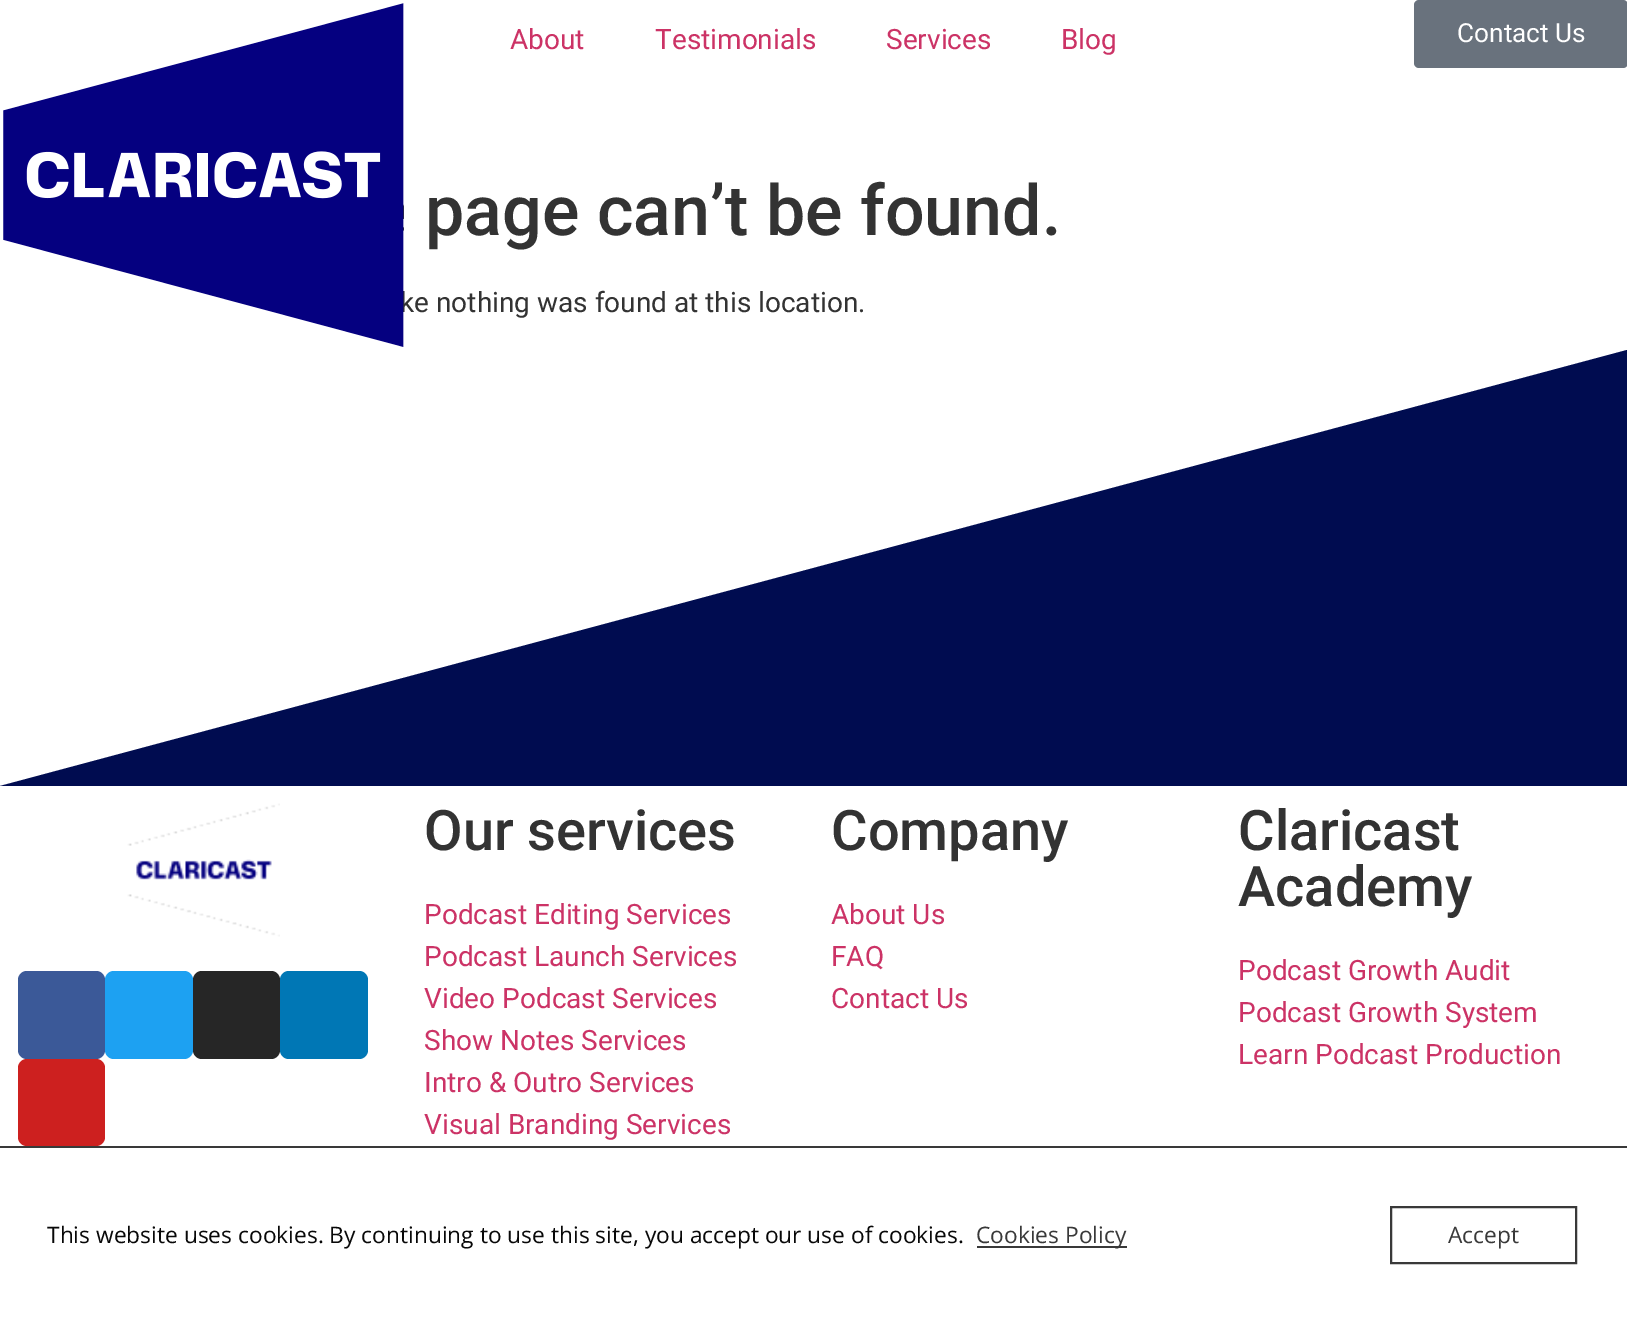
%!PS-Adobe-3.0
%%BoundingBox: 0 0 1627 1321
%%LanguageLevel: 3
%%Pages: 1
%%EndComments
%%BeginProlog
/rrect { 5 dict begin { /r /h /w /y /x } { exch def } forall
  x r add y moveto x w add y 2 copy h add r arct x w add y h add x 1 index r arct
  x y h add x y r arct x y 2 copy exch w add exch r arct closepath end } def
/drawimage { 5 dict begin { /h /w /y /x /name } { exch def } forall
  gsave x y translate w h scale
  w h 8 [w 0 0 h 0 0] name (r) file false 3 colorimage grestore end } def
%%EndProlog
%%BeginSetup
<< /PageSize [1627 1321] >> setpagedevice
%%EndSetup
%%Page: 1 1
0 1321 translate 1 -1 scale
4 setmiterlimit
1 setgray
0 0 1627 1321 rectfill
0.412 0.447 0.49 setrgbcolor
1414 0 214 68 5 rrect fill
0 0.047 0.314 setrgbcolor
newpath 1627 350 moveto 0 786 lineto 1627 786 lineto closepath fill
(images/2.raw) 127 803 153 134 drawimage
0.231 0.349 0.596 setrgbcolor
18 971 87 88 9 rrect fill
0.114 0.631 0.949 setrgbcolor
105 971 88 88 9 rrect fill
0.149 setgray
193 971 87 88 9 rrect fill
0 0.467 0.71 setrgbcolor
280 971 88 88 9 rrect fill
0.804 0.125 0.122 setrgbcolor
18 1059 87 87 9 rrect fill
0.224 setgray
0 1146 1627 2 rectfill
977 1246 150 2 rectfill
2 setlinewidth
1391 1207 185 56 rectstroke
/Roboto-Regular [28 0 0 -28 0 0] selectfont
0.8 0.2 0.4 setrgbcolor
510 49 moveto (About) show
655 49 moveto (Testimonials) show
886 49 moveto (Services) show
1061 49 moveto (Blog) show
/Roboto-Regular [26.25 0 0 -26.25 0 0] selectfont
1 setgray
1457 42 moveto (Contact Us) show
/Roboto-Medium [70 0 0 -70 0 0] selectfont
0.2 setgray
425 235 moveto (page can’t be found.) show
/Roboto-Regular [28 0 0 -28 0 0] selectfont
400 312 moveto (ke nothing was found at this location.) show
(images/1.raw) 3 3 401 344 drawimage
/Roboto-Medium [56 0 0 -56 0 0] selectfont
424 850 moveto (Our services) show
/Roboto-Regular [28 0 0 -28 0 0] selectfont
0.8 0.2 0.4 setrgbcolor
424 924 moveto (Podcast Editing Services) show
424 966 moveto (Podcast Launch Services) show
424 1008 moveto (Video Podcast Services) show
424 1050 moveto (Show Notes Services) show
424 1092 moveto (Intro & Outro Services) show
424 1134 moveto (Visual Branding Services) show
/Roboto-Medium [56 0 0 -56 0 0] selectfont
0.2 setgray
831 850 moveto (Company) show
/Roboto-Regular [28 0 0 -28 0 0] selectfont
0.8 0.2 0.4 setrgbcolor
831 924 moveto (About Us) show
831 966 moveto (FAQ) show
831 1008 moveto (Contact Us) show
/Roboto-Medium [56 0 0 -56 0 0] selectfont
0.2 setgray
1238 850 moveto (Claricast) show
1238 906 moveto (Academy) show
/Roboto-Regular [28 0 0 -28 0 0] selectfont
0.8 0.2 0.4 setrgbcolor
1238 980 moveto (Podcast Growth Audit) show
1238 1022 moveto (Podcast Growth System) show
1238 1064 moveto (Learn Podcast Production) show
/OpenSans-Regular [22.75 0 0 -22.75 0 0] selectfont
0.031 setgray
47 1243 moveto (This website uses cookies. By continuing to use this site, you accept our use of cookies.) show
0.224 setgray
976 1243 moveto (Cookies Policy) show
1448 1243 moveto (Accept) show
showpage
%%EOF
